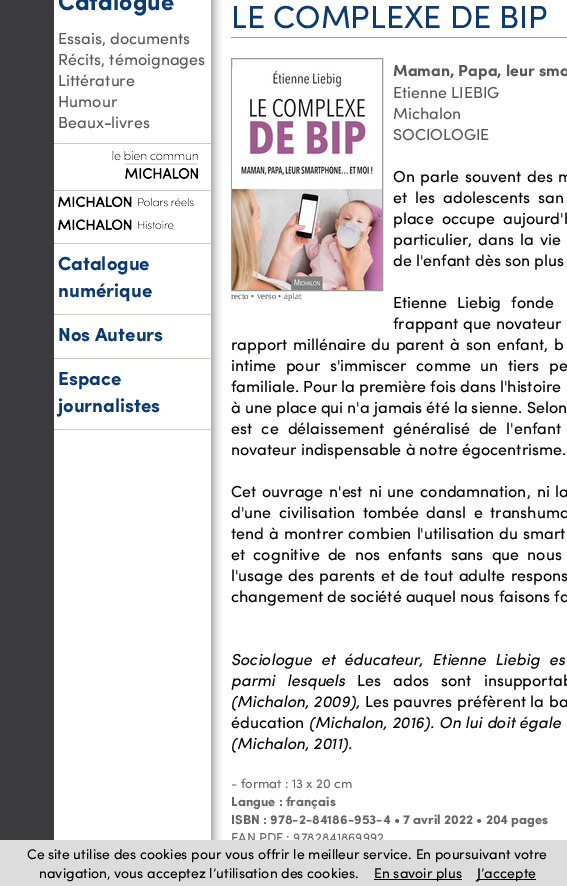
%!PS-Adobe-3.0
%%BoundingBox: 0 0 567 886
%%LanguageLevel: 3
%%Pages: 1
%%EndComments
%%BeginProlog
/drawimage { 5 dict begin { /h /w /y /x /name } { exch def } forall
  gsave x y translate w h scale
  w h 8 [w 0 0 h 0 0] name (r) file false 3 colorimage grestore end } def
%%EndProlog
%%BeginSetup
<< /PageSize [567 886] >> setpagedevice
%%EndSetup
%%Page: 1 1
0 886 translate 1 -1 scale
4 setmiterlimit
1 setgray
0 0 567 886 rectfill
0.231 0.227 0.247 setrgbcolor
0 0 54 840 rectfill
0.824 0.792 0.741 setrgbcolor
54 143 157 1 rectfill
(images/1.raw) 112 150 87 29 drawimage
54 190 157 1 rectfill
(images/2.raw) 58 196 136 12 drawimage
(images/3.raw) 58 219 116 12 drawimage
54 243 157 1 rectfill
54 314 157 1 rectfill
54 358 157 1 rectfill
54 429 157 1 rectfill
(images/4.raw) 211 0 11 840 drawimage
0.647 0.616 0.604 setrgbcolor
231 37 336 1 rectfill
0.6 setgray
231.5 58.5 151 232 rectstroke
(images/5.raw) 232 68 150 222 drawimage
/Sofia-Bold [24 0 0 -24 0 0] selectfont
0.051 0.231 0.427 setrgbcolor
58 10 moveto (Catalogue) show
/Sofia-Regular [16 0 0 -16 0 0] selectfont
0.345 0.345 0.353 setrgbcolor
58 44 moveto (Essais, documents) show
58 65 moveto (Récits, témoignages) show
58 86 moveto (Littérature) show
58 107 moveto (Humour) show
58 128 moveto (Beaux-livres) show
/Sofia-Bold [19 0 0 -19 0 0] selectfont
0.051 0.231 0.427 setrgbcolor
58 270 moveto (Catalogue) show
58 297 moveto (numérique) show
58 341 moveto (Nos Auteurs) show
58 385 moveto (Espace) show
58 412 moveto (journalistes) show
/Sofia-Regular [32 0 0 -32 0 0] selectfont
231 28 moveto (LE COMPLEXE DE BIP) show
/Sofia-Bold [16 0 0 -16 0 0] selectfont
0.345 0.345 0.353 setrgbcolor
393 76 moveto (Maman, Papa, leur sma) show
/Sofia-Regular [16 0 0 -16 0 0] selectfont
393 98 moveto (Etienne LIEBIG) show
393 119 moveto (Michalon) show
393 140 moveto (SOCIOLOGIE) show
0 setgray
393 182 moveto 1.5 0 32 (On parle souvent des m) widthshow
393 203 moveto 4 0 32 (et les adolescents san) widthshow
393 224 moveto 4 0 32 (place occupe aujourd'h) widthshow
393 245 moveto 2 0 32 (particulier, dans la vie) widthshow
393 266 moveto (de l'enfant dès son plus) show
393 308 moveto 6 0 32 (Etienne Liebig fonde) widthshow
393 329 moveto 1 0 32 (frappant que novateur) widthshow
231 350 moveto 1.5 0 32 (rapport millénaire du parent à son enfant, b) widthshow
231 371 moveto 5.5 0 32 (intime pour s'immiscer comme un tiers pe) widthshow
231 392 moveto (familiale. Pour la première fois dans l'histoire) show
231 413 moveto (à une place qui n'a jamais été la sienne. Selon) show
231 434 moveto 5 0 32 (est ce délaissement généralisé de l'enfant) widthshow
231 455 moveto (novateur indispensable à notre égocentrisme.) show
231 497 moveto 1.75 0 32 (Cet ouvrage n'est ni une condamnation, ni la) widthshow
231 518 moveto 3.5 0 32 (d'une civilisation tombée dansl e transhuma) widthshow
231 539 moveto 1 0 32 (tend à montrer combien l'utilisation du smart) widthshow
231 560 moveto 4 0 32 (et cognitive de nos enfants sans que nous) widthshow
231 581 moveto 1.25 0 32 (l'usage des parents et de tout adulte respons) widthshow
231 602 moveto (changement de société auquel nous faisons fa) show
/LiberationSerif-Regular [9 0 0 -9 0 0] selectfont
0.345 0.345 0.353 setrgbcolor
231 299 moveto (recto • verso • aplat) show
/Sofia-Italic [16 0 0 -16 0 0] selectfont
0 setgray
231 665 moveto 5 0 32 (Sociologue et éducateur, Etienne Liebig es) widthshow
231 686 moveto 8 0 32 (parmi lesquels) widthshow
/Sofia-Regular [16 0 0 -16 0 0] selectfont
357 686 moveto 8 0 32 (Les ados sont insupportab) widthshow
/Sofia-Italic [16 0 0 -16 0 0] selectfont
231 707 moveto (\(Michalon, 2009\),) show
/Sofia-Regular [16 0 0 -16 0 0] selectfont
365 707 moveto 0.5 0 32 (Les pauvres préfèrent la ba) widthshow
231 728 moveto (éducation) show
/Sofia-Italic [16 0 0 -16 0 0] selectfont
309 728 moveto 0.5 0 32 (\(Michalon, 2016\). On lui doit égale) widthshow
231 749 moveto (\(Michalon, 2011\).) show
/Sofia-Regular [13 0 0 -13 0 0] selectfont
0.4 setgray
231 788 moveto (- format : 13 x 20 cm) show
/Sofia-Bold [13 0 0 -13 0 0] selectfont
231 806 moveto (Langue : français) show
231 824 moveto (ISBN : 978-2-84186-953-4 • 7 avril 2022 • 204 pages) show
/Sofia-Regular [13 0 0 -13 0 0] selectfont
231 842 moveto (EAN PDF : 9782841869992) show
0.863 setgray
0 840 567 46 rectfill
/Sofia-Regular [14 0 0 -14 0 0] selectfont
0 setgray
27 859 moveto (Ce site utilise des cookies pour vous offrir le meilleur service. En poursuivant votre) show
39 878 moveto (navigation, vous acceptez l’utilisation des cookies.) show
374 879 88 1 rectfill
374 878 moveto (En savoir plus) show
477 879 59 1 rectfill
477 878 moveto (J’accepte) show
showpage
%%EOF
